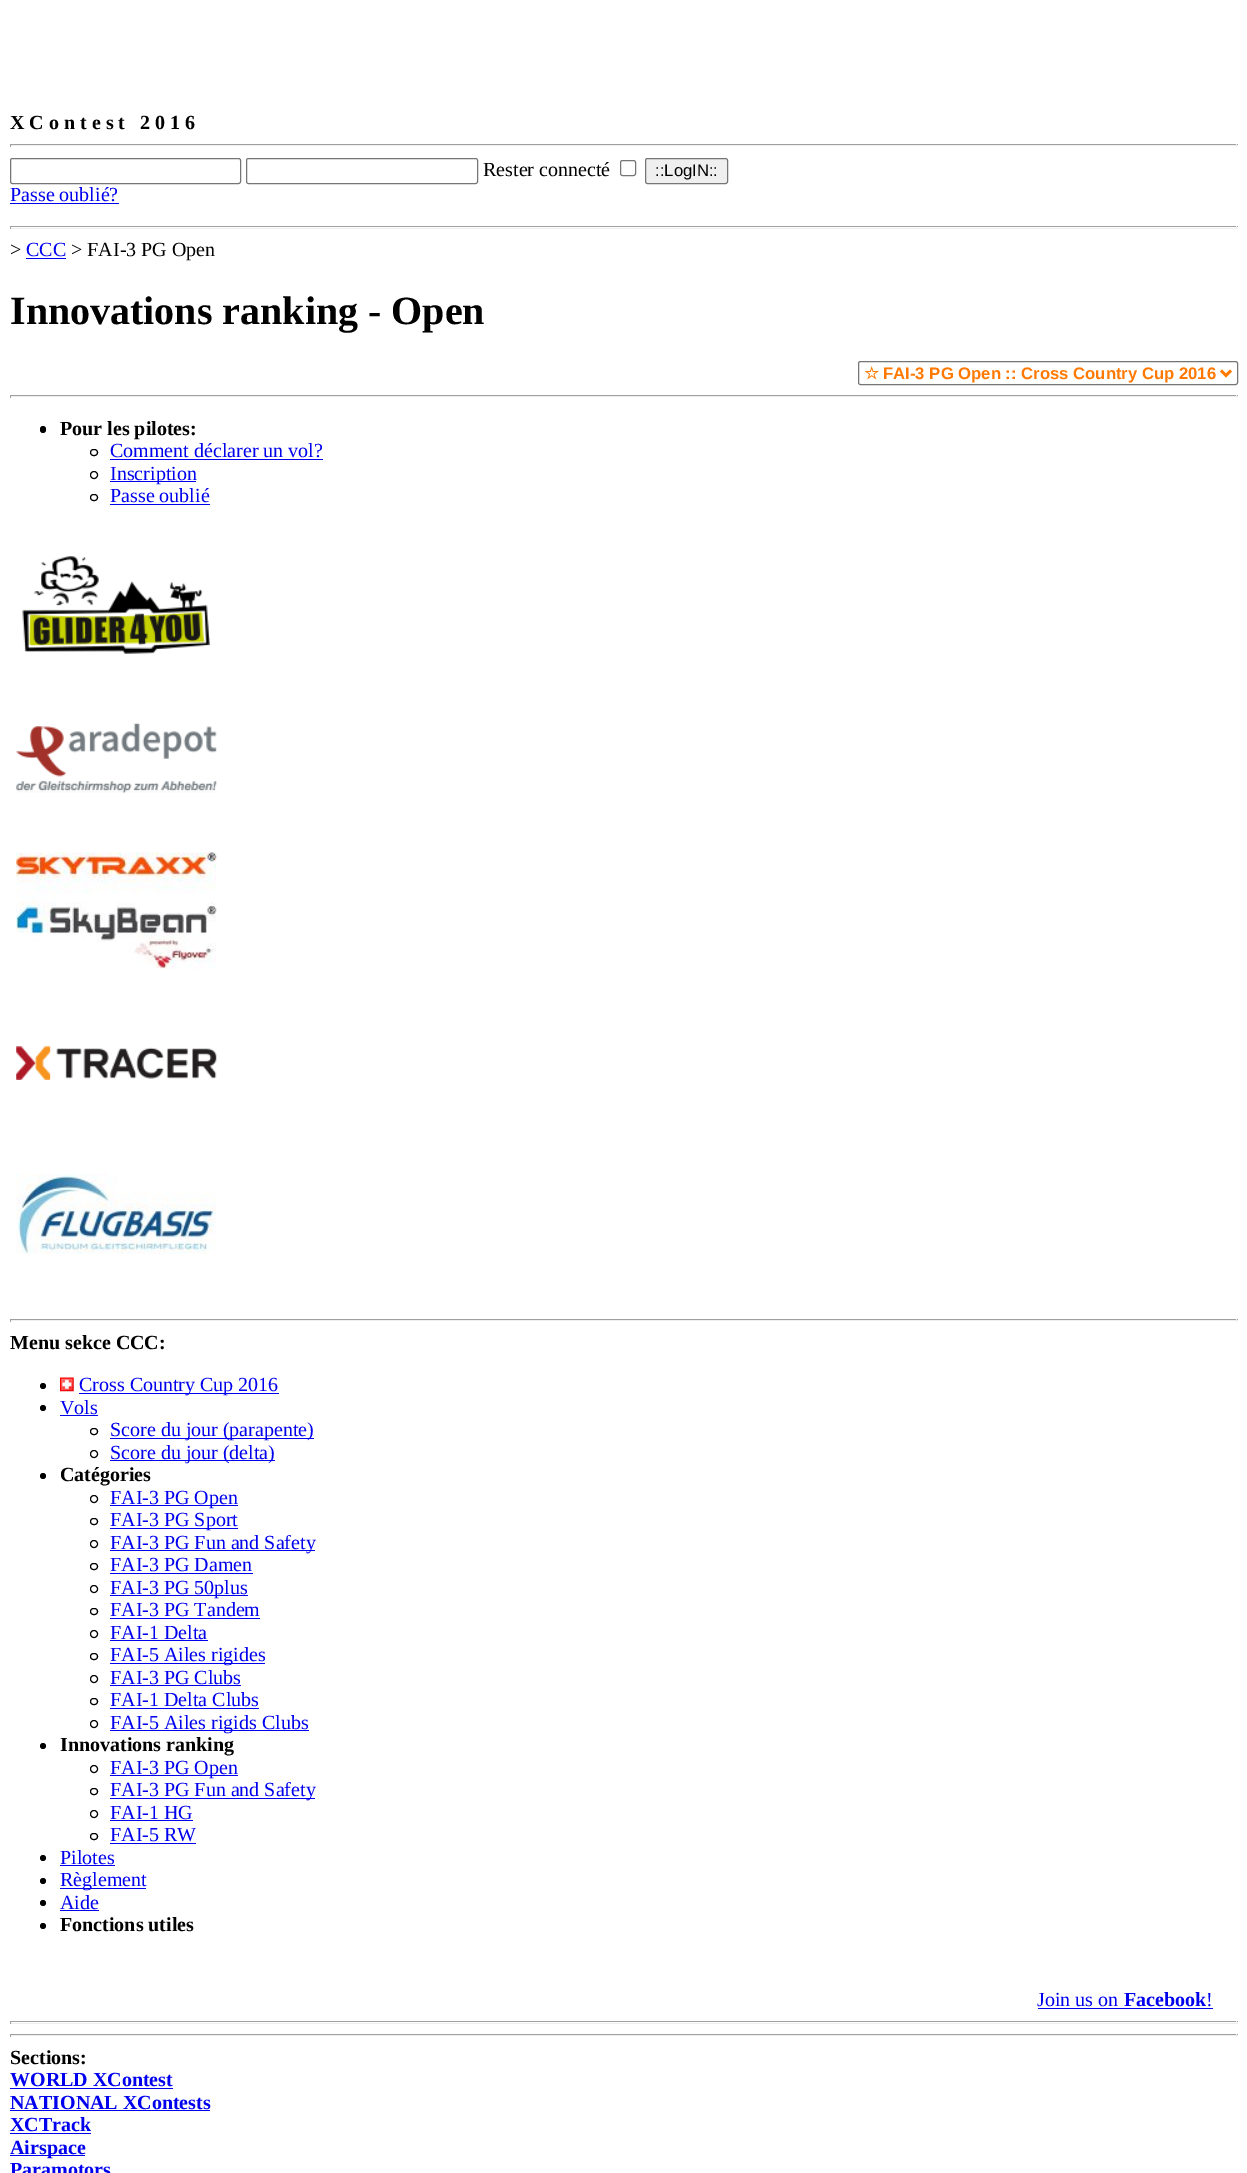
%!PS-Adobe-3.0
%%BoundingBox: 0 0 1247 2173
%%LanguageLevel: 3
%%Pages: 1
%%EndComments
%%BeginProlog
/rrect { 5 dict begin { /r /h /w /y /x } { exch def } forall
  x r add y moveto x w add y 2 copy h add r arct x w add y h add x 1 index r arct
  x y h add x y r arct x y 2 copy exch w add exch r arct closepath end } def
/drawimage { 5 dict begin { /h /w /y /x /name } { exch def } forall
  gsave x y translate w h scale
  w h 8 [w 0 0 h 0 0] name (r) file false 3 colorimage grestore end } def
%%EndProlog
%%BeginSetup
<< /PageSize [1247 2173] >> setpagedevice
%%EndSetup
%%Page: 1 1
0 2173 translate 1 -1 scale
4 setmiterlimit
1 setgray
0 0 1247 2173 rectfill
0.624 setgray
10 144 1228 1 rectfill
0.933 setgray
1236 144 1 3 rectfill
10 145 1228 1 rectfill
0.624 setgray
10 144 1 3 rectfill
0.463 setgray
10.5 158.5 230 25 2 rrect stroke
246.5 158.5 231 25 2 rrect stroke
620.5 160.5 15 15 2 rrect stroke
0.937 setgray
645.5 158.5 82 25 2 rrect gsave fill grestore
0.463 setgray
stroke
0 0 0.933 setrgbcolor
10 203 109 1 rectfill
0.624 setgray
10 226 1228 1 rectfill
0.933 setgray
1236 226 1 3 rectfill
10 228 1228 1 rectfill
0.624 setgray
10 226 1 3 rectfill
0 0 0.933 setrgbcolor
26 258 40 1 rectfill
0.463 setgray
858.5 361.5 379 23 2 rrect stroke
1 0.475 0.004 setrgbcolor
2.5 setlinewidth
newpath 1221 370.5 moveto 1226 375.5 lineto 1231 370.5 lineto stroke
0.624 setgray
10 395 1228 1 rectfill
0.933 setgray
1236 395 1 3 rectfill
10 396 1228 1 rectfill
0.624 setgray
10 395 1 3 rectfill
0 setgray
40 426 6 7 3 rrect fill
1 setlinewidth
90.5 449.5 7 6 3 rrect stroke
0 0 0.933 setrgbcolor
110 459 213 1 rectfill
0 setgray
newpath 94 475 3.5 0 360 arc closepath stroke
0 0 0.933 setrgbcolor
110 481 86 1 rectfill
0 setgray
90.5 494.5 7 6 3 rrect stroke
0 0 0.933 setrgbcolor
110 504 100 1 rectfill
(images/1.raw) 16 556 201 698 drawimage
0.624 setgray
10 1319 1228 1 rectfill
0.933 setgray
1236 1319 1 3 rectfill
10 1320 1228 1 rectfill
0.624 setgray
10 1319 1 3 rectfill
0 setgray
newpath 43 1386 3 0 360 arc closepath fill
(images/2.raw) 60 1377 14 15 drawimage
0 0 0.933 setrgbcolor
79 1393 200 1 rectfill
0 setgray
newpath 43 1408 3 0 360 arc closepath fill
0 0 0.933 setrgbcolor
60 1415 38 1 rectfill
0 setgray
90.5 1428.5 7 6 3 rrect stroke
0 0 0.933 setrgbcolor
110 1438 204 1 rectfill
0 setgray
newpath 94 1454 3.5 0 360 arc closepath stroke
0 0 0.933 setrgbcolor
110 1460 165 1 rectfill
0 setgray
newpath 43 1476 3 0 360 arc closepath fill
newpath 94 1499 3.5 0 360 arc closepath stroke
0 0 0.933 setrgbcolor
110 1505 128 1 rectfill
0 setgray
90.5 1518.5 7 6 3 rrect stroke
0 0 0.933 setrgbcolor
110 1528 128 1 rectfill
0 setgray
newpath 94 1544 3.5 0 360 arc closepath stroke
0 0 0.933 setrgbcolor
110 1550 205 1 rectfill
0 setgray
90.5 1563.5 7 6 3 rrect stroke
0 0 0.933 setrgbcolor
110 1573 143 1 rectfill
0 setgray
newpath 94 1589 3.5 0 360 arc closepath stroke
0 0 0.933 setrgbcolor
110 1595 138 1 rectfill
0 setgray
90.5 1608.5 7 6 3 rrect stroke
0 0 0.933 setrgbcolor
110 1618 150 1 rectfill
0 setgray
newpath 94 1634 3.5 0 360 arc closepath stroke
0 0 0.933 setrgbcolor
110 1640 98 1 rectfill
0 setgray
90.5 1653.5 7 6 3 rrect stroke
0 0 0.933 setrgbcolor
110 1663 155 1 rectfill
0 setgray
newpath 94 1679 3.5 0 360 arc closepath stroke
0 0 0.933 setrgbcolor
110 1685 131 1 rectfill
0 setgray
90.5 1698.5 7 6 3 rrect stroke
0 0 0.933 setrgbcolor
110 1708 149 1 rectfill
0 setgray
newpath 94 1724 3.5 0 360 arc closepath stroke
0 0 0.933 setrgbcolor
110 1730 199 1 rectfill
0 setgray
newpath 43 1746 3 0 360 arc closepath fill
newpath 94 1769 3.5 0 360 arc closepath stroke
0 0 0.933 setrgbcolor
110 1775 128 1 rectfill
0 setgray
90.5 1788.5 7 6 3 rrect stroke
0 0 0.933 setrgbcolor
110 1798 205 1 rectfill
0 setgray
newpath 94 1814 3.5 0 360 arc closepath stroke
0 0 0.933 setrgbcolor
110 1820 83 1 rectfill
0 setgray
90.5 1833.5 7 6 3 rrect stroke
0 0 0.933 setrgbcolor
110 1843 86 1 rectfill
0 setgray
newpath 43 1858 3 0 360 arc closepath fill
0 0 0.933 setrgbcolor
60 1865 55 1 rectfill
0 setgray
newpath 43 1881 3 0 360 arc closepath fill
0 0 0.933 setrgbcolor
60 1888 86 1 rectfill
0 setgray
newpath 43 1903 3 0 360 arc closepath fill
0 0 0.933 setrgbcolor
60 1910 39 1 rectfill
0 setgray
newpath 43 1926 3 0 360 arc closepath fill
0 0 0.933 setrgbcolor
1038 2008 175 1 rectfill
0.624 setgray
10 2021 1228 1 rectfill
0.933 setgray
1236 2021 1 3 rectfill
10 2023 1228 1 rectfill
0.624 setgray
10 2021 1 3 rectfill
10 2034 1228 1 rectfill
0.933 setgray
1236 2034 1 3 rectfill
10 2035 1228 1 rectfill
0.624 setgray
10 2034 1 3 rectfill
0 0 0.933 setrgbcolor
10 2088 163 1 rectfill
10 2110 200 1 rectfill
10 2133 81 1 rectfill
10 2155 75 1 rectfill
/LiberationSerif-Bold [20 0 0 -20 0 0] selectfont
0 setgray
10 129 moveto (X C o n t e s t   2 0 1 6) show
/LiberationSerif-Regular [20 0 0 -20 0 0] selectfont
483 176 moveto (Rester connecté) show
/LiberationSans-Regular [16.7 0 0 -16.7 0 0] selectfont
655 176 moveto (::LogIN::) show
/LiberationSerif-Regular [20 0 0 -20 0 0] selectfont
0 0 0.933 setrgbcolor
10 201 moveto (Passe oublié?) show
0 setgray
10 256 moveto (>) show
0 0 0.933 setrgbcolor
26 256 moveto (CCC) show
0 setgray
71 256 moveto (> FAI-3 PG Open) show
/LiberationSerif-Bold [40 0 0 -40 0 0] selectfont
10 324 moveto (Innovations ranking - Open) show
/DejaVuSans-Bold [16.7 0 0 -16.7 0 0] selectfont
1 0.475 0.004 setrgbcolor
864 379 moveto (☆) show
/LiberationSans-Bold [16.7 0 0 -16.7 0 0] selectfont
883 379 moveto (FAI-3 PG Open :: Cross Country Cup 2016) show
/LiberationSerif-Bold [20 0 0 -20 0 0] selectfont
0 setgray
60 435 moveto (Pour les pilotes:) show
/LiberationSerif-Regular [20 0 0 -20 0 0] selectfont
0 0 0.933 setrgbcolor
110 457 moveto (Comment déclarer un vol?) show
110 480 moveto (Inscription) show
110 502 moveto (Passe oublié) show
/LiberationSerif-Bold [20 0 0 -20 0 0] selectfont
0 setgray
10 1349 moveto (Menu sekce CCC:) show
/LiberationSerif-Regular [20 0 0 -20 0 0] selectfont
0 0 0.933 setrgbcolor
79 1391 moveto (Cross Country Cup 2016) show
60 1414 moveto (Vols) show
110 1436 moveto (Score du jour \(parapente\)) show
110 1459 moveto (Score du jour \(delta\)) show
/LiberationSerif-Bold [20 0 0 -20 0 0] selectfont
0 setgray
60 1481 moveto (Catégories) show
/LiberationSerif-Regular [20 0 0 -20 0 0] selectfont
0 0 0.933 setrgbcolor
110 1504 moveto (FAI-3 PG Open) show
110 1526 moveto (FAI-3 PG Sport) show
110 1549 moveto (FAI-3 PG Fun and Safety) show
110 1571 moveto (FAI-3 PG Damen) show
110 1594 moveto (FAI-3 PG 50plus) show
110 1616 moveto (FAI-3 PG Tandem) show
110 1639 moveto (FAI-1 Delta) show
110 1661 moveto (FAI-5 Ailes rigides) show
110 1684 moveto (FAI-3 PG Clubs) show
110 1706 moveto (FAI-1 Delta Clubs) show
110 1729 moveto (FAI-5 Ailes rigids Clubs) show
/LiberationSerif-Bold [20 0 0 -20 0 0] selectfont
0 setgray
60 1751 moveto (Innovations ranking) show
/LiberationSerif-Regular [20 0 0 -20 0 0] selectfont
0 0 0.933 setrgbcolor
110 1774 moveto (FAI-3 PG Open) show
110 1796 moveto (FAI-3 PG Fun and Safety) show
110 1819 moveto (FAI-1 HG) show
110 1841 moveto (FAI-5 RW) show
60 1864 moveto (Pilotes) show
60 1886 moveto (Règlement) show
60 1909 moveto (Aide) show
/LiberationSerif-Bold [20 0 0 -20 0 0] selectfont
0 setgray
60 1931 moveto (Fonctions utiles) show
/LiberationSerif-Regular [20 0 0 -20 0 0] selectfont
0 0 0.933 setrgbcolor
1037 2006 moveto (Join us on) show
/LiberationSerif-Bold [20 0 0 -20 0 0] selectfont
1124 2006 moveto (Facebook) show
/LiberationSerif-Regular [20 0 0 -20 0 0] selectfont
1206 2006 moveto (!) show
/LiberationSerif-Bold [20 0 0 -20 0 0] selectfont
0 setgray
10 2064 moveto (Sections:) show
0 0 0.933 setrgbcolor
10 2086 moveto (WORLD XContest) show
10 2109 moveto (NATIONAL XContests) show
10 2131 moveto (XCTrack) show
10 2154 moveto (Airspace) show
10 2176 moveto (Paramotors) show
showpage
%%EOF
